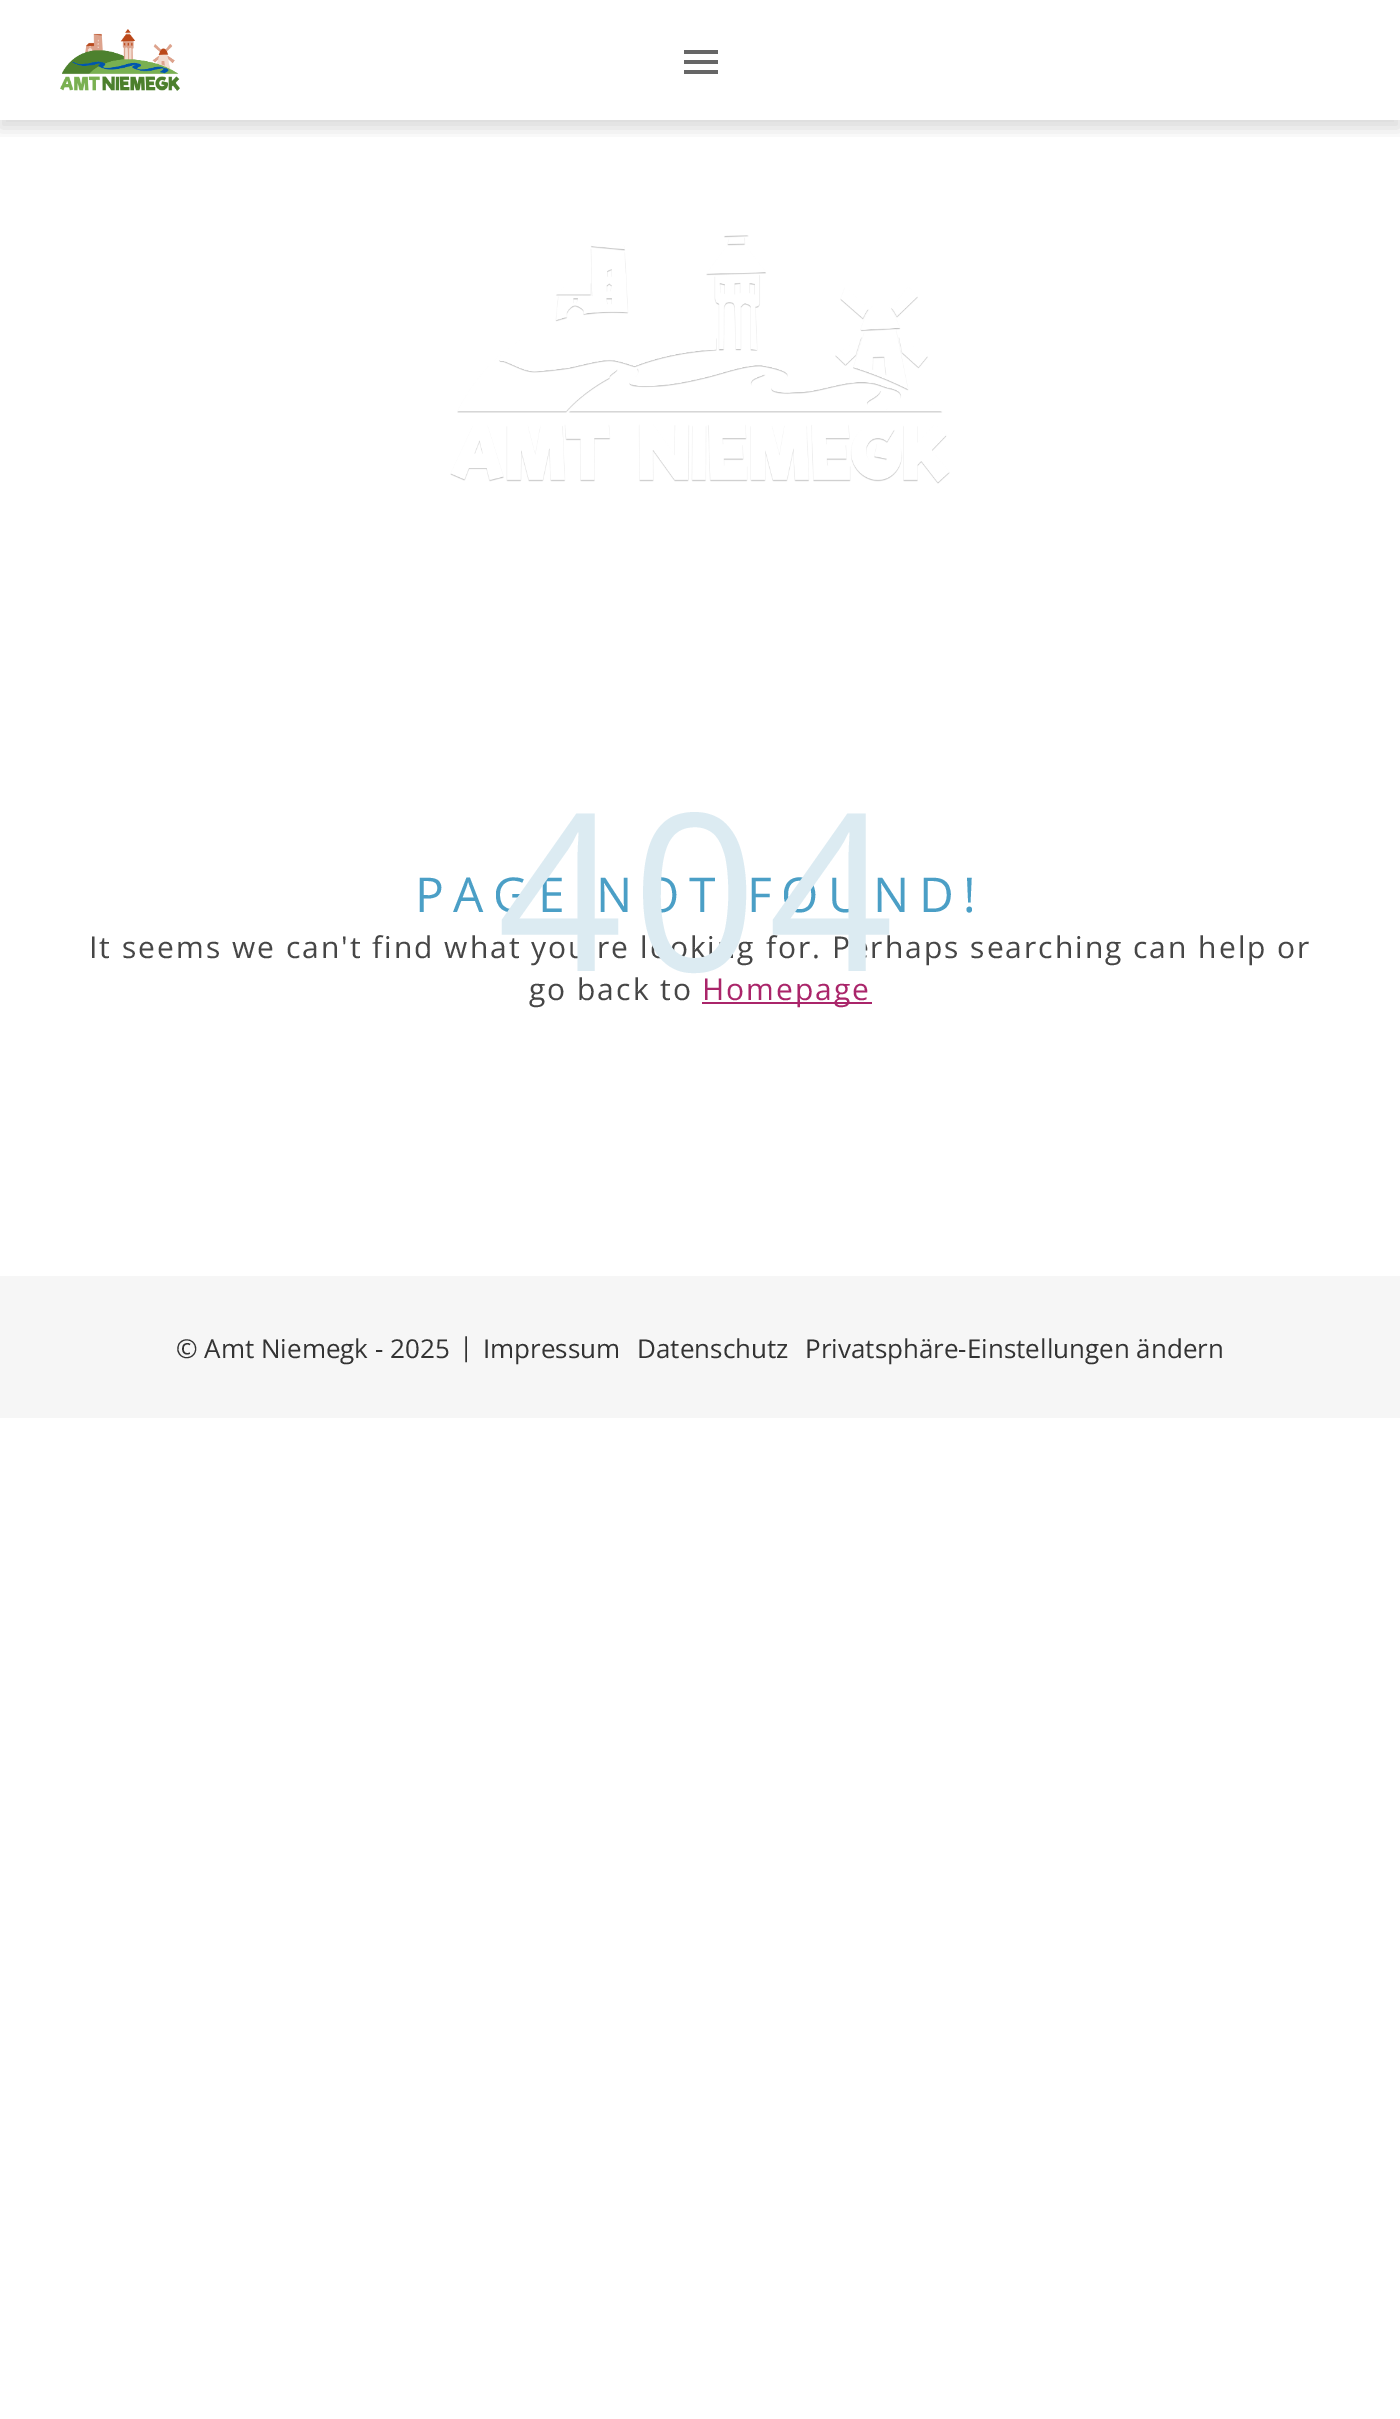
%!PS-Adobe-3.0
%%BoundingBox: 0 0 1400 2419
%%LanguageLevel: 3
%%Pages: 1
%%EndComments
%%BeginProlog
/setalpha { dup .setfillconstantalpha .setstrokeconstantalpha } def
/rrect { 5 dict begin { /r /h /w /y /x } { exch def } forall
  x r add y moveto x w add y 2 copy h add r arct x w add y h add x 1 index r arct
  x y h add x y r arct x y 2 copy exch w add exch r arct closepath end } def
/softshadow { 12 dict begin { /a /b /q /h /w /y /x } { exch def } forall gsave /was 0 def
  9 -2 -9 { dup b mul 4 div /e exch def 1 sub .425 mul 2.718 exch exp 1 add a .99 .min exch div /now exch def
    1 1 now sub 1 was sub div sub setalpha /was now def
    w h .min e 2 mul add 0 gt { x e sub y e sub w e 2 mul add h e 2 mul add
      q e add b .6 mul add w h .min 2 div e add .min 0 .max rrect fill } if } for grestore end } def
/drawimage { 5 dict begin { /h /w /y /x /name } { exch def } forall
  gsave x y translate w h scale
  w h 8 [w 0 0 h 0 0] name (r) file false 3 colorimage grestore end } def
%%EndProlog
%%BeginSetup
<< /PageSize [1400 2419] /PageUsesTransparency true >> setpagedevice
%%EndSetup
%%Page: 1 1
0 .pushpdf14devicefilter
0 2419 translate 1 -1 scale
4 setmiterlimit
1 setgray
0 0 1400 2419 rectfill
gsave
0 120 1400 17 rectclip
0 setgray
0 8 1400 120 0 8 0.15 softshadow
grestore
(images/1.raw) 60 29 120 62 drawimage
0.4 setgray
684 50 34 4 rectfill
684 60 34 4 rectfill
684 70 34 4 rectfill
(images/2.raw) 450 235 500 249 drawimage
0.667 0.145 0.416 setrgbcolor
702 1002 170 2 rectfill
0.965 setgray
0 1276 1400 142 rectfill
/OpenSans-Regular [48 0 0 -48 0 0] selectfont
0.294 0.624 0.776 setrgbcolor
415 912 moveto 9.6 0 (PAGE NOT FOUND!) ashow
/OpenSans-Regular [30 0 0 -30 0 0] selectfont
0.275 setgray
89 958 moveto 2 0 (It seems we can't find what you're looking for. Perhaps searching can help or) ashow
/OpenSans-Regular [220 0 0 -220 0 0] selectfont
0.863 0.922 0.949 setrgbcolor
497 971 moveto 9.6 0 (404) ashow
/OpenSans-Regular [30 0 0 -30 0 0] selectfont
0.275 setgray
529 1000 moveto 2 0 (go back to) ashow
0.667 0.145 0.416 setrgbcolor
702 1000 moveto 2 0 (Homepage) ashow
/OpenSans-Regular [26 0 0 -26 0 0] selectfont
0.2 setgray
176 1358 moveto (© Amt Niemegk - 2025) show
459 1356 moveto (|) show
483 1358 moveto (Impressum) show
637 1358 moveto (Datenschutz) show
805 1358 moveto (Privatsphäre-Einstellungen ändern) show
.poppdf14devicefilter showpage
%%EOF
